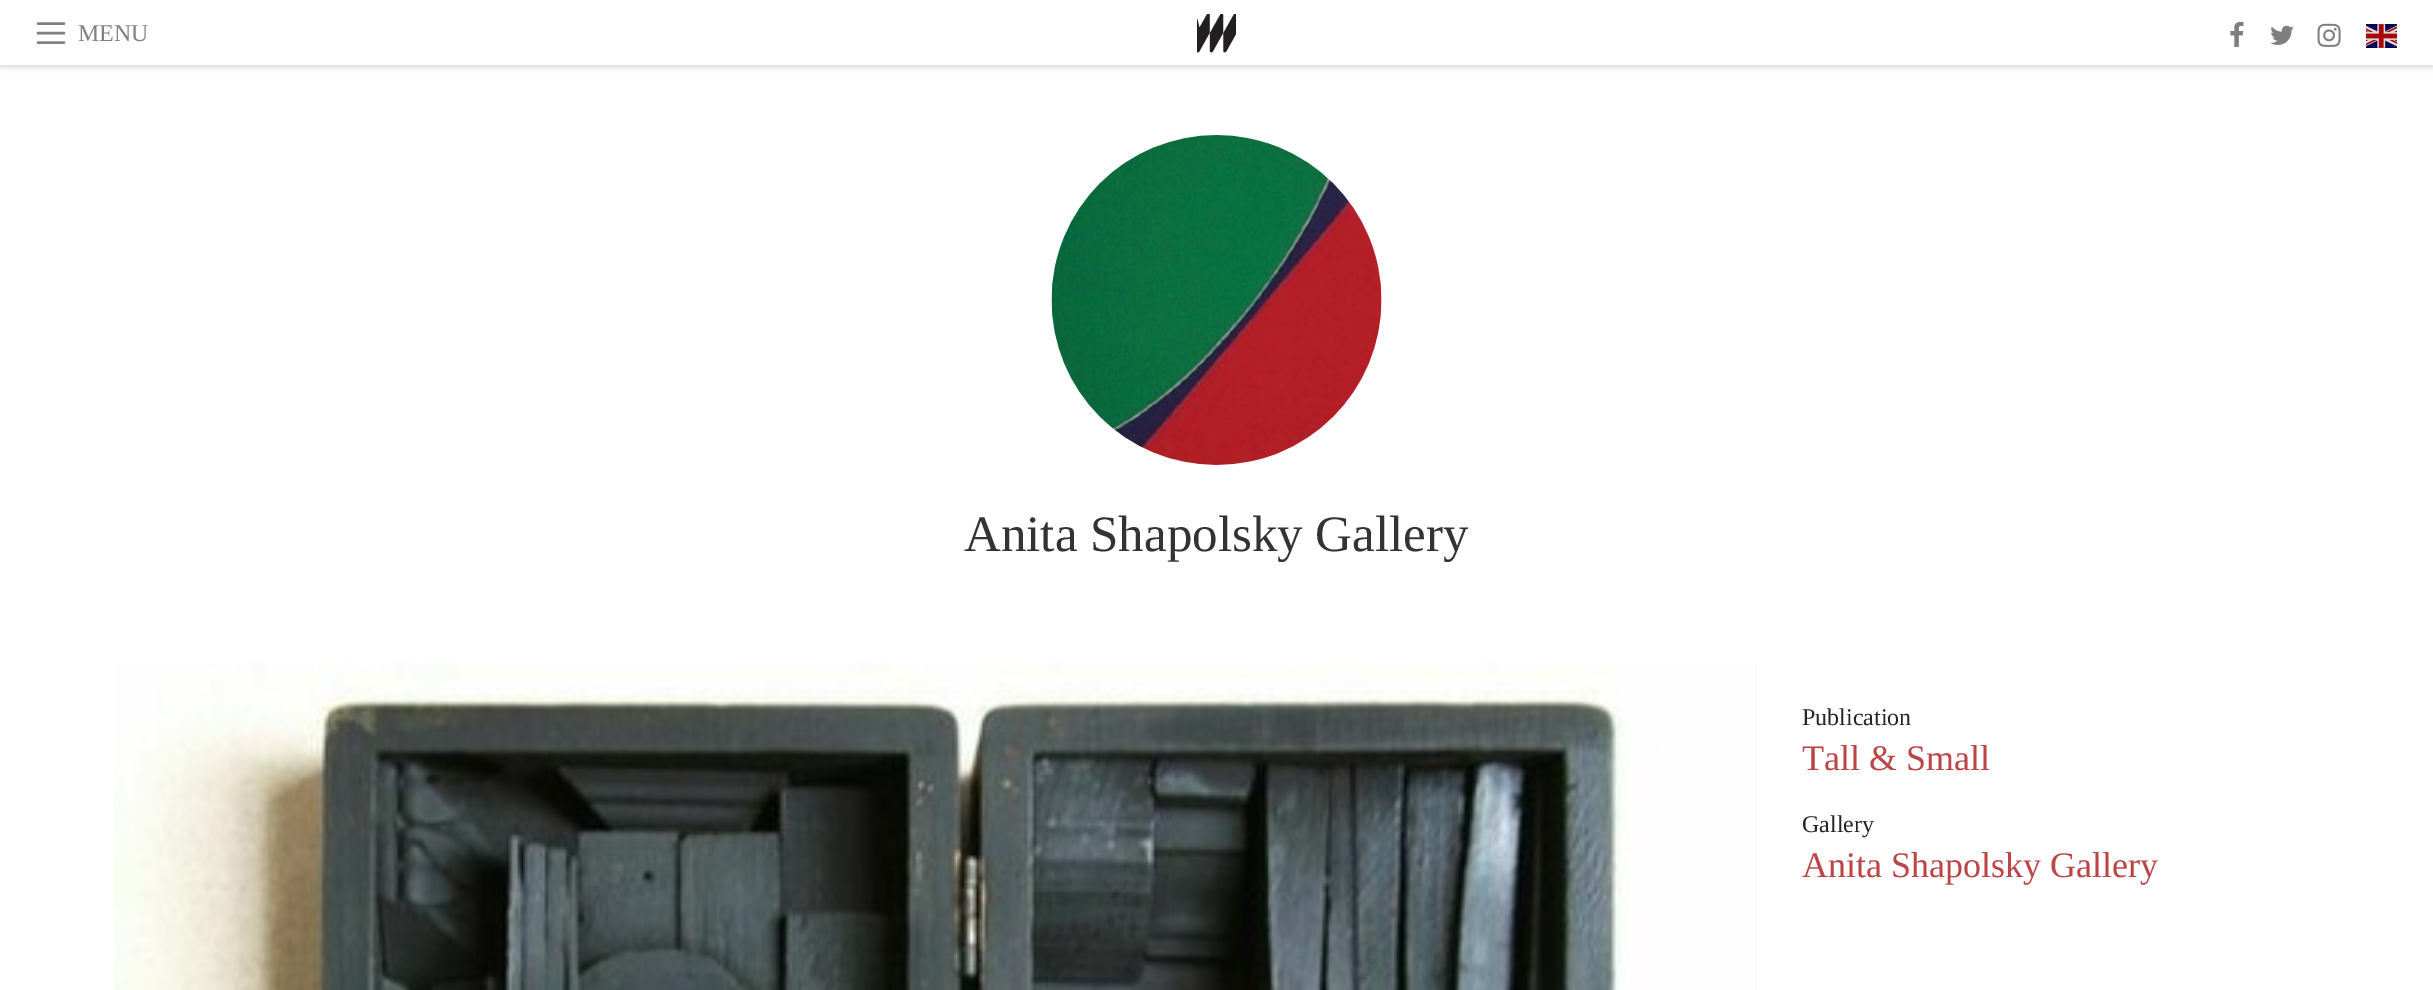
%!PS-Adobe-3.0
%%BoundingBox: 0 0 2433 990
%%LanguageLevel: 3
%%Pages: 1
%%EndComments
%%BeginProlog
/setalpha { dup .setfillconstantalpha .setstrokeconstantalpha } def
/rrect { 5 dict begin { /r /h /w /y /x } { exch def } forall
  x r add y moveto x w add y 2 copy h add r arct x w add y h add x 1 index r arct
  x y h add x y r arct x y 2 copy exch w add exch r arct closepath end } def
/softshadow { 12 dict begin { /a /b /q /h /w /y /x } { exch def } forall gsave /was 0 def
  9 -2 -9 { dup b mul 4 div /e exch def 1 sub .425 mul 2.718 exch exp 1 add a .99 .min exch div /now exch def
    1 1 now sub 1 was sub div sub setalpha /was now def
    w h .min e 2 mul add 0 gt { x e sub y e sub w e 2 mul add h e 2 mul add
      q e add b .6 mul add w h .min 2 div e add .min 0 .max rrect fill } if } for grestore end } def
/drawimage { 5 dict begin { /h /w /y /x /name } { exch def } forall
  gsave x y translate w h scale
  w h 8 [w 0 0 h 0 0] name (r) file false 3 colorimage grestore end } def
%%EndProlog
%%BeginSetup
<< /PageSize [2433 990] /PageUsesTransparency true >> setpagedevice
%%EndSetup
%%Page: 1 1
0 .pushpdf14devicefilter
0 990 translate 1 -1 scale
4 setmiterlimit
1 setgray
0 0 2433 990 rectfill
0 setgray
0 0 2433 65 0 4 0.25 softshadow
1 setgray
0 0 2433 65 rectfill
0.502 setgray
2.4 setlinewidth
1 setlinecap
newpath 38 23.5 moveto 64 23.5 lineto 38 33 moveto 64 33 lineto 38 42.5 moveto 64 42.5 lineto stroke
(images/1.raw) 1197 14 39 39 drawimage
(images/2.raw) 2230 21 14 26 drawimage
(images/3.raw) 2270 25 24 20 drawimage
(images/4.raw) 2317 23 24 24 drawimage
(images/5.raw) 2366 24 31 24 drawimage
0.961 setgray
newpath 1217 300 165 0 360 arc closepath fill
(images/6.raw) 1051 135 331 330 drawimage
1756 663 1 327 rectfill
(images/7.raw) 114 663 1643 327 drawimage
/LiberationSerif-Regular [24 0 0 -24 0 0] selectfont
0.502 setgray
78 41 moveto (MENU) show
/LiberationSerif-Regular [51 0 0 -51 0 0] selectfont
0.2 setgray
964 551 moveto (Anita Shapolsky Gallery) show
/LiberationSerif-Regular [24 0 0 -24 0 0] selectfont
0.129 0.145 0.161 setrgbcolor
1802 725 moveto (Publication) show
/LiberationSerif-Regular [36 0 0 -36 0 0] selectfont
0.733 0.267 0.267 setrgbcolor
1802 770 moveto (Tall & Small) show
/LiberationSerif-Regular [24 0 0 -24 0 0] selectfont
0.129 0.145 0.161 setrgbcolor
1802 832 moveto (Gallery) show
/LiberationSerif-Regular [36 0 0 -36 0 0] selectfont
0.733 0.267 0.267 setrgbcolor
1802 877 moveto (Anita Shapolsky Gallery) show
.poppdf14devicefilter showpage
%%EOF
